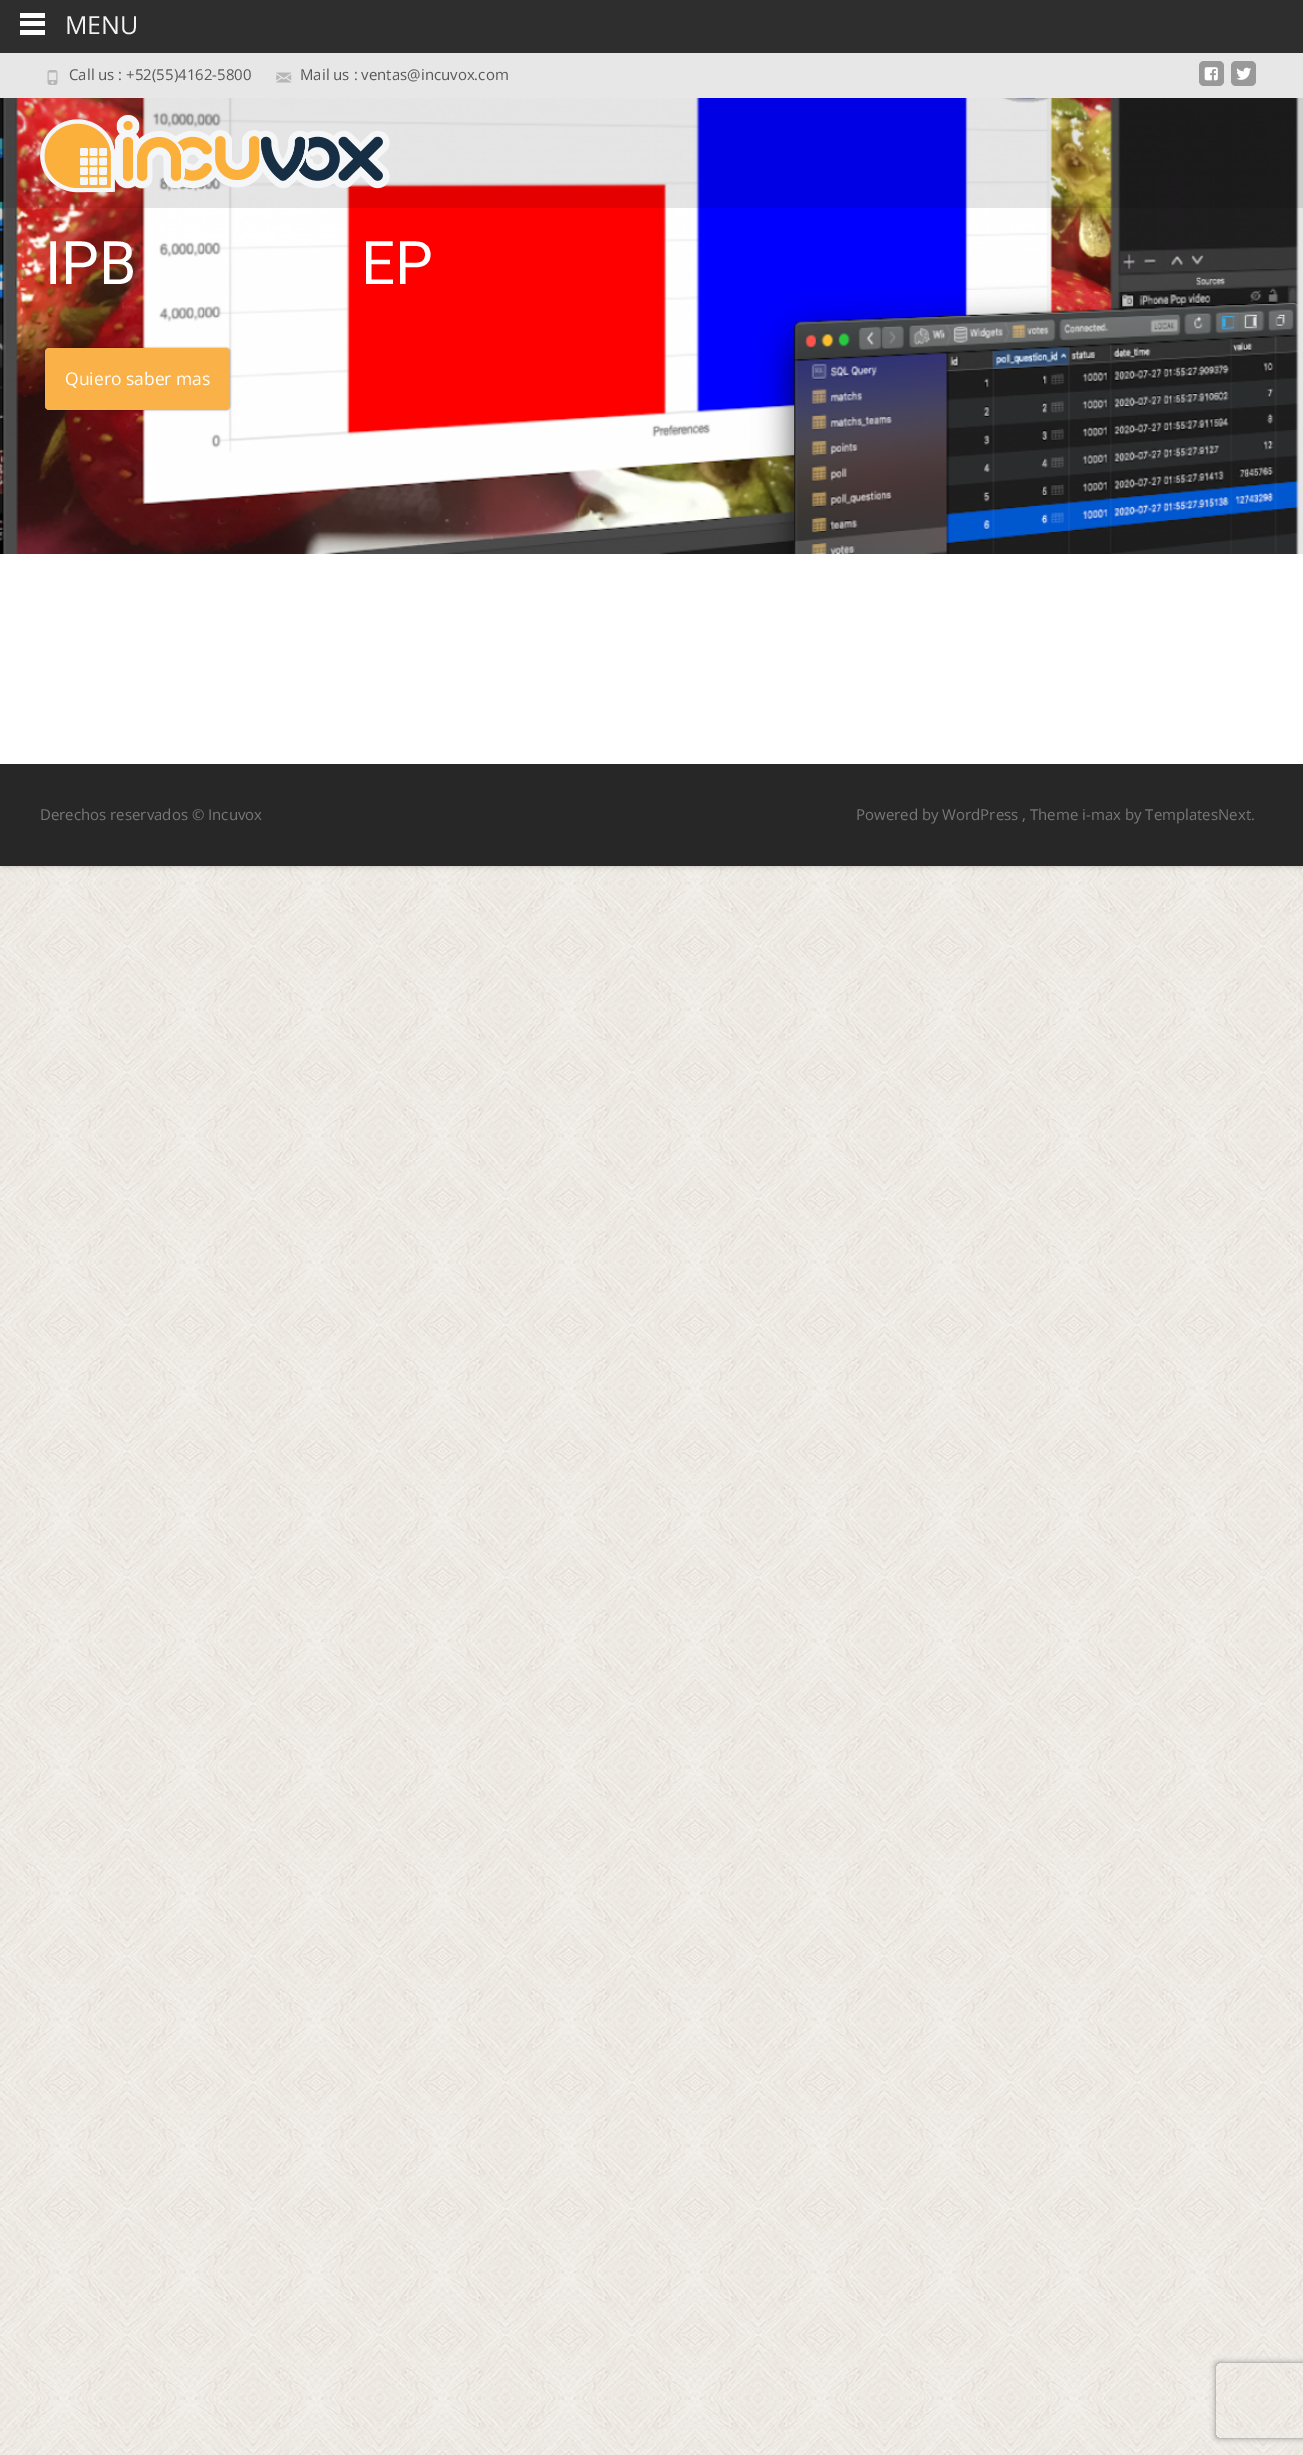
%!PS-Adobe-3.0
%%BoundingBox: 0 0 1303 2455
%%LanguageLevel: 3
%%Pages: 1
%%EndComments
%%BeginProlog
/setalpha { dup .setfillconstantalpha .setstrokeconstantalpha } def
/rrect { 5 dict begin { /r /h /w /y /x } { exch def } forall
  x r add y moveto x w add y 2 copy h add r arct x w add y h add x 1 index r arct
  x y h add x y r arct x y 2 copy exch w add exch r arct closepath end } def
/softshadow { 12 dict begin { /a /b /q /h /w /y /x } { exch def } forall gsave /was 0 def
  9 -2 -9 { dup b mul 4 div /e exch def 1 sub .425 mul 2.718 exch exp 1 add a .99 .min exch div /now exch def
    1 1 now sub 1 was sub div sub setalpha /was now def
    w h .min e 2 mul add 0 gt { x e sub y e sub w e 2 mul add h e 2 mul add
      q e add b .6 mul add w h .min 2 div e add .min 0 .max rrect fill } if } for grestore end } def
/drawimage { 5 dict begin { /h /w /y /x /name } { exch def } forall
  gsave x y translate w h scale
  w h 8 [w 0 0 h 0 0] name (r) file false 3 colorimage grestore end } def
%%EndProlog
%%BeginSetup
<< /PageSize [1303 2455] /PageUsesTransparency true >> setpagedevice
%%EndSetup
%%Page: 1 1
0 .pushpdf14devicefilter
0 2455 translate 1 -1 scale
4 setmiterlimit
1 setgray
0 0 1303 2455 rectfill
(images/1.raw) 0 866 1303 1589 drawimage
0 setgray
0 53 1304 813 2.5 2.5 0.1 softshadow
0 53 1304 813 2.5 2.5 0.1 softshadow
0.18 setgray
0 0 1303 53 rectfill
1 setgray
20 13 25 5 rectfill
20 21 25 5 rectfill
20 30 25 5 rectfill
0 554 1303 210 rectfill
0.906 setgray
0 53 1303 45 rectfill
(images/2.raw) 47 70 11 15 drawimage
(images/3.raw) 276 72 16 11 drawimage
0.6 setgray
1199 61 25 25 5 rrect fill
(images/4.raw) 1204 67 14 14 drawimage
1231 61 25 25 5 rrect fill
(images/5.raw) 1236 67 15 13 drawimage
0.902 setgray
1295 98 8 456 rectfill
(images/7.raw) 0 98 1299 456 drawimage
0.1 setalpha
0 setgray
0 98 1303 110 rectfill
1 setalpha
(images/6.raw) 40 115 350 78 drawimage
45 348 185 62 4 1 0.4 softshadow
0.98 0.698 0.282 setrgbcolor
45 348 185 62 4 rrect fill
0.153 setgray
0 764 1303 102 rectfill
gsave
newpath 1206 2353 moveto 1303 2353 lineto 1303 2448 lineto 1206 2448 lineto closepath 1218.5 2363 moveto 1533.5 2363 lineto 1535 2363 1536 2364 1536 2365.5 curveto 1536 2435.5 lineto 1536 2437 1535 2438 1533.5 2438 curveto 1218.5 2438 lineto 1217 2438 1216 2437 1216 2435.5 curveto 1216 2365.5 lineto 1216 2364 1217 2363 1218.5 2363 curveto closepath eoclip newpath
0.502 setgray
1216 2363 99 75 2.5 3 1 softshadow
grestore
/OpenSans-Regular [25 0 0 -25 0 0] selectfont
0.949 setgray
65 34 moveto (MENU) show
/OpenSans-Regular [15 0 0 -15 0 0] selectfont
0.341 setgray
69 80 moveto (Call us : +52\(55\)4162-5800) show
300 80 moveto (Mail us : ventas@incuvox.com) show
/Roboto-Regular [60 0 0 -60 0 0] selectfont
1 setgray
45 284 moveto (IPB) show
361 284 moveto (EP) show
/OpenSans-Regular [17.5 0 0 -17.5 0 0] selectfont
65 385 moveto (Quiero saber mas) show
/OpenSans-Regular [15 0 0 -15 0 0] selectfont
0.467 setgray
40 820 moveto (Derechos reservados © Incuvox) show
856 820 moveto (Powered by WordPress , Theme i-max by TemplatesNext.) show
.poppdf14devicefilter showpage
%%EOF
